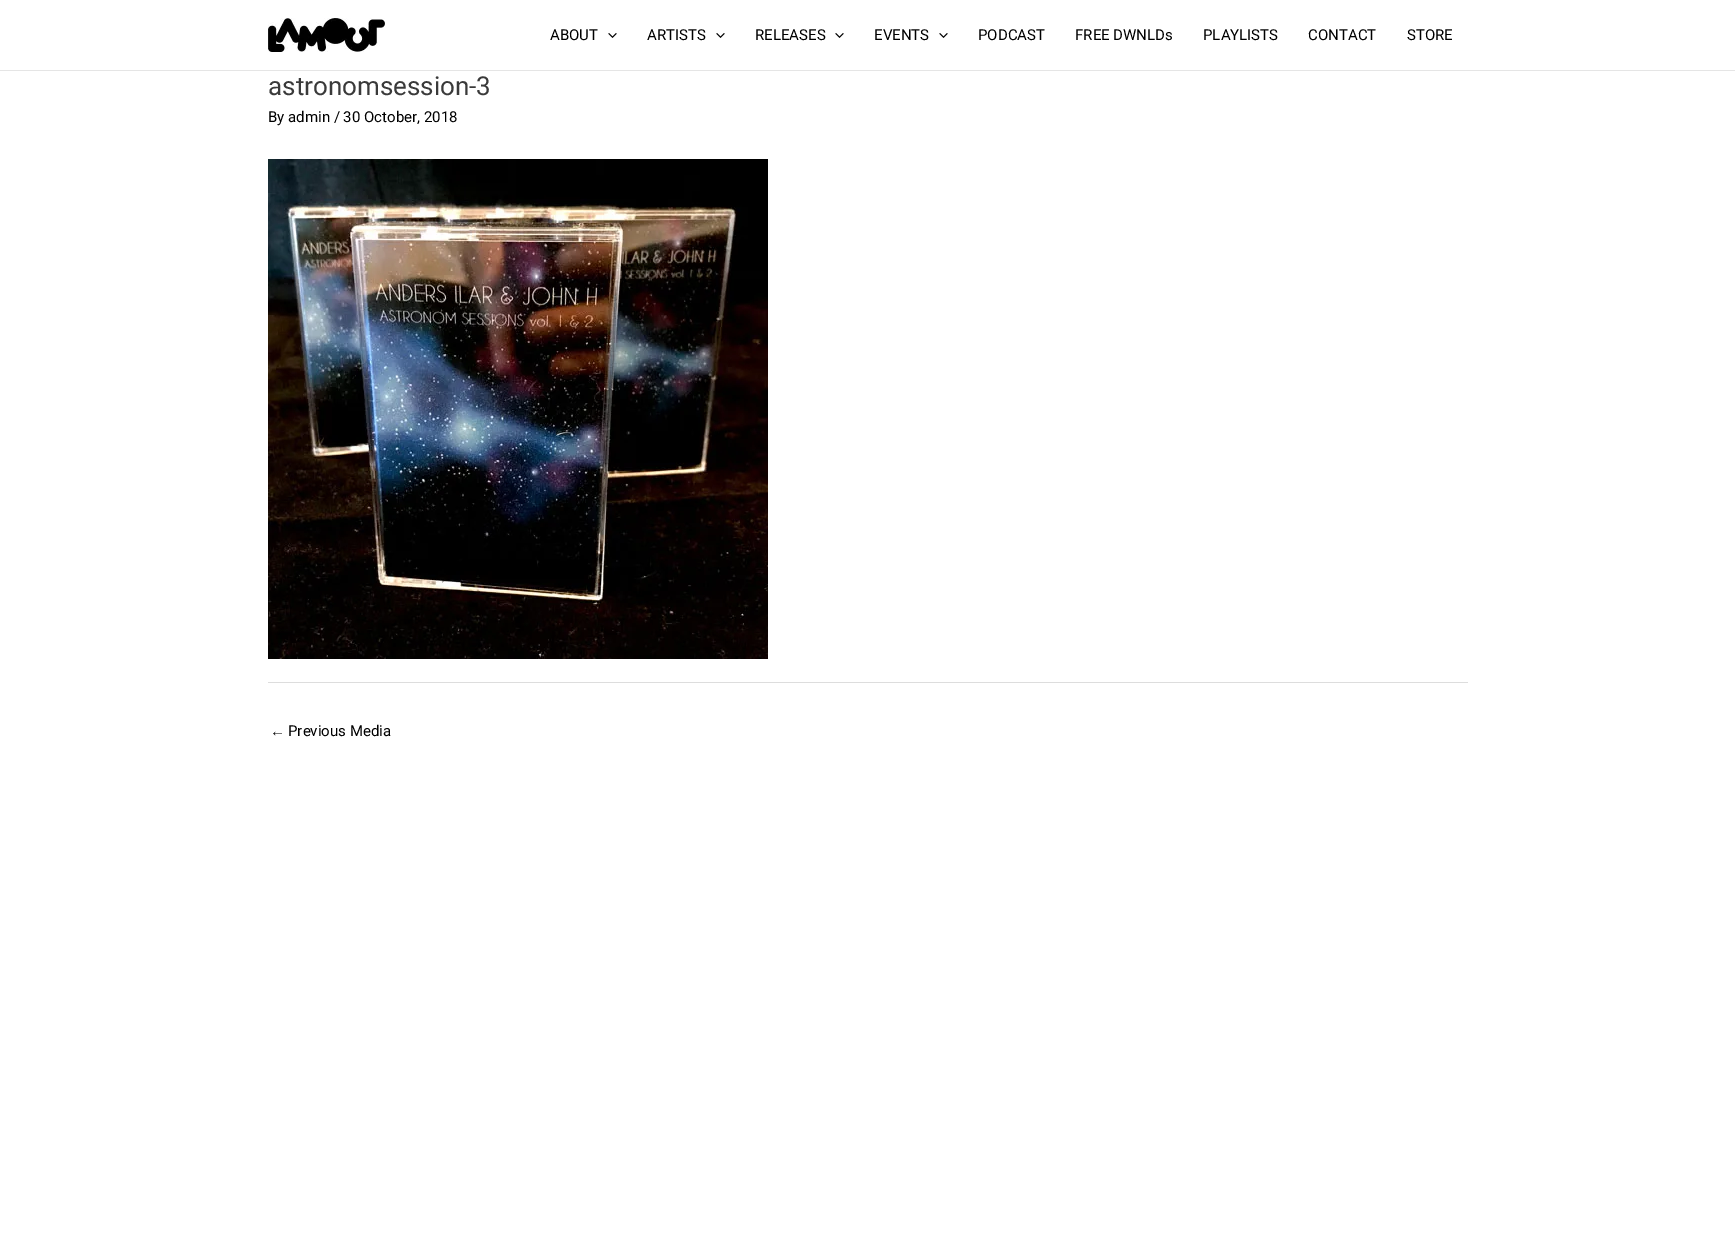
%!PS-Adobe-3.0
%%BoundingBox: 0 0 1735 1256
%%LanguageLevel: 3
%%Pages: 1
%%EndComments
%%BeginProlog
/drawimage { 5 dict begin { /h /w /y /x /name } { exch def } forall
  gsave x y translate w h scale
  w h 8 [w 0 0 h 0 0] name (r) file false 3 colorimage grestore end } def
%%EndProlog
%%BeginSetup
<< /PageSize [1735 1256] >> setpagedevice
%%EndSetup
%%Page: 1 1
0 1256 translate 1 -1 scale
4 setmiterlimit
1 setgray
0 0 1735 1256 rectfill
0.898 setgray
0 70 1735 1 rectfill
(images/1.raw) 268 18 117 34 drawimage
(images/2.raw) 608 33 9 5 drawimage
(images/2.raw) 716 33 9 5 drawimage
(images/2.raw) 835 33 9 5 drawimage
(images/2.raw) 939 33 9 5 drawimage
(images/3.raw) 268 159 500 500 drawimage
0.867 setgray
268 682 1200 1 rectfill
/Roboto-Regular [15 0 0 -15 0 0] selectfont
0 setgray
550 40 moveto (ABOUT) show
647 40 moveto (ARTISTS) show
755 40 moveto (RELEASES) show
874 40 moveto (EVENTS) show
978 40 moveto (PODCAST) show
1075 40 moveto (FREE DWNLDs) show
1203 40 moveto (PLAYLISTS) show
1308 40 moveto (CONTACT) show
1407 40 moveto (STORE) show
/Roboto-Regular [26 0 0 -26 0 0] selectfont
0.227 setgray
268 95 moveto (astronomsession-3) show
/Roboto-Regular [15 0 0 -15 0 0] selectfont
0 setgray
268 122 moveto (By admin / 30 October, 2018) show
/LiberationSans-Regular [15 0 0 -15 0 0] selectfont
270 736 moveto (←) show
/Roboto-Regular [15 0 0 -15 0 0] selectfont
288 736 moveto (Previous Media) show
showpage
%%EOF
